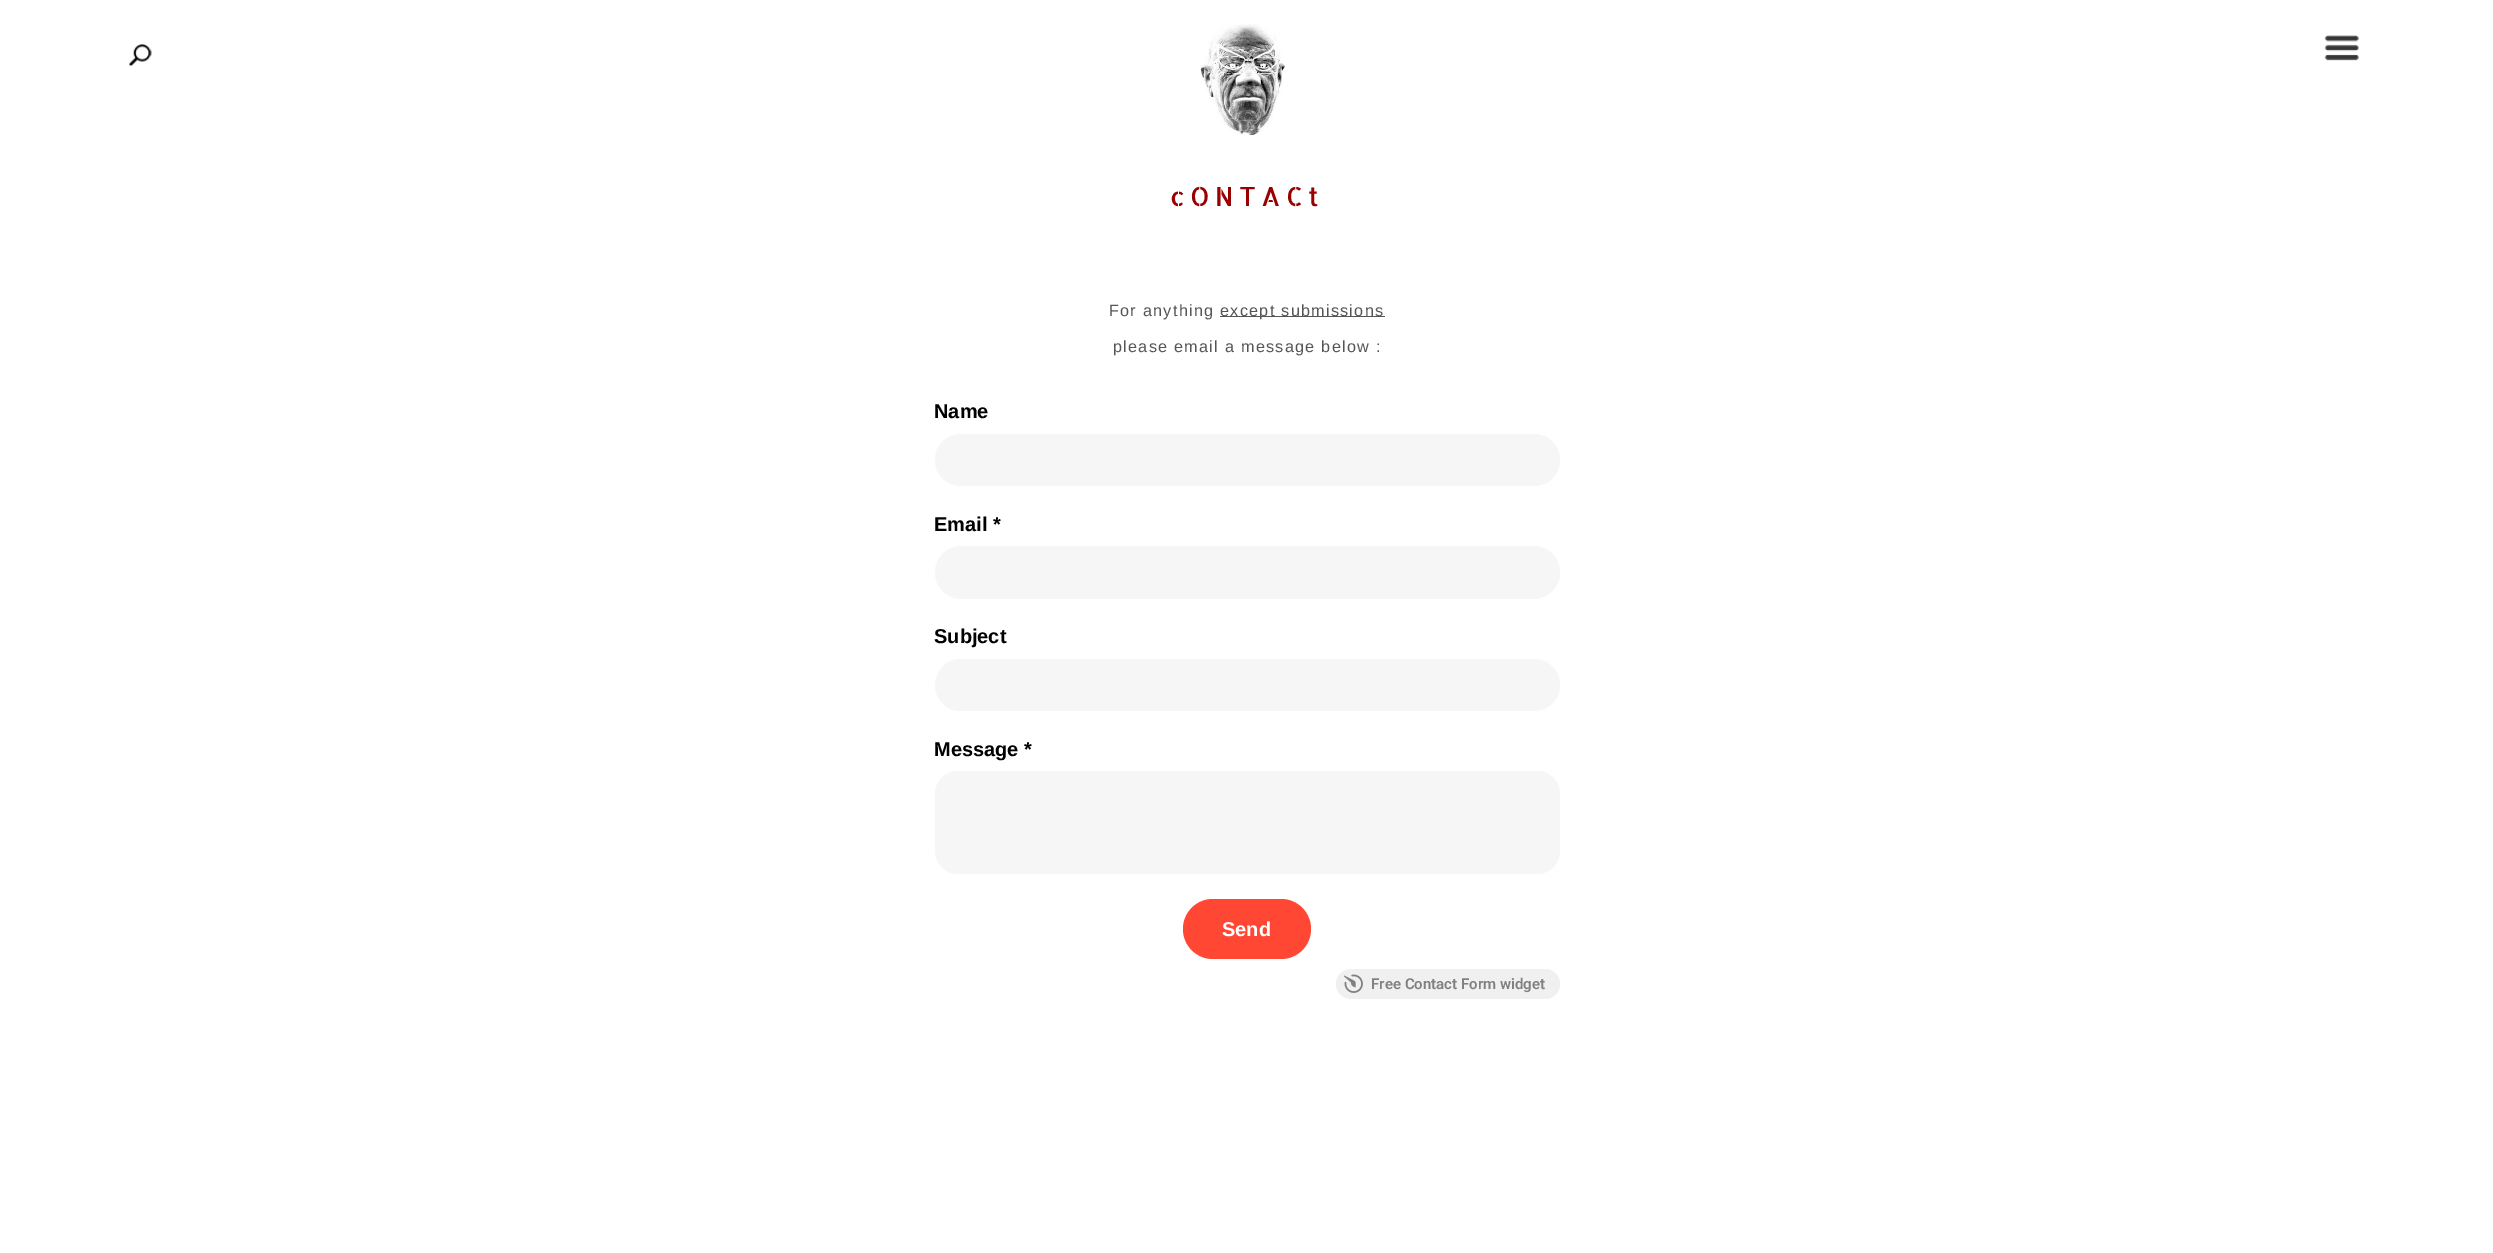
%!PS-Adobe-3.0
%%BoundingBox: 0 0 2493 1253
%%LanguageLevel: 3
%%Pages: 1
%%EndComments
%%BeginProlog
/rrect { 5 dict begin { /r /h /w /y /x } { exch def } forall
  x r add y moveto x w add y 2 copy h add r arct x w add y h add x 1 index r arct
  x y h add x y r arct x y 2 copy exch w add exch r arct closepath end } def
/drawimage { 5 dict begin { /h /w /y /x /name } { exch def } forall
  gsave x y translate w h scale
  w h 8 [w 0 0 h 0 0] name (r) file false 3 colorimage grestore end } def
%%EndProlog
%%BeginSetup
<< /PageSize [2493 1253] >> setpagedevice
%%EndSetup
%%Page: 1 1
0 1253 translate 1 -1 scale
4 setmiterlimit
1 setgray
0 0 2493 1253 rectfill
(images/1.raw) 1200 24 85 112 drawimage
(images/2.raw) 129 43 23 24 drawimage
(images/3.raw) 2324 35 35 26 drawimage
0.333 setgray
1220 316 165 1 rectfill
0.965 setgray
935 434 625 52 26 rrect fill
935 546 625 53 26.5 rrect fill
935 659 625 52 26 rrect fill
935 771 625 103 23 rrect fill
1 0.278 0.204 setrgbcolor
1183 899 128 60 30 rrect fill
0.941 setgray
1336 969 224 30 15 rrect fill
(images/4.raw) 1344 974 19 19 drawimage
/AllertaStencil-Regular [26.25 0 0 -26.25 0 0] selectfont
0.6 0 0 setrgbcolor
1170 206 moveto 5.25 0 (cONTACt) ashow
/LiberationSans-Regular [16.25 0 0 -16.25 0 0] selectfont
0.333 setgray
1109 316 moveto 1.25 0 (For anything) ashow
1220 316 moveto 1.25 0 (except submissions) ashow
1113 352 moveto 1.25 0 (please email a message below :) ashow
/LiberationSans-Bold [20 0 0 -20 0 0] selectfont
0 setgray
934 418 moveto (Name) show
934 531 moveto (Email *) show
934 643 moveto (Subject) show
934 756 moveto (Message *) show
1 setgray
1222 936 moveto (Send) show
/Roboto-SemiBold [15 0 0 -15 0 0] selectfont
0.506 setgray
1371 989 moveto (Free Contact Form widget) show
showpage
%%EOF
